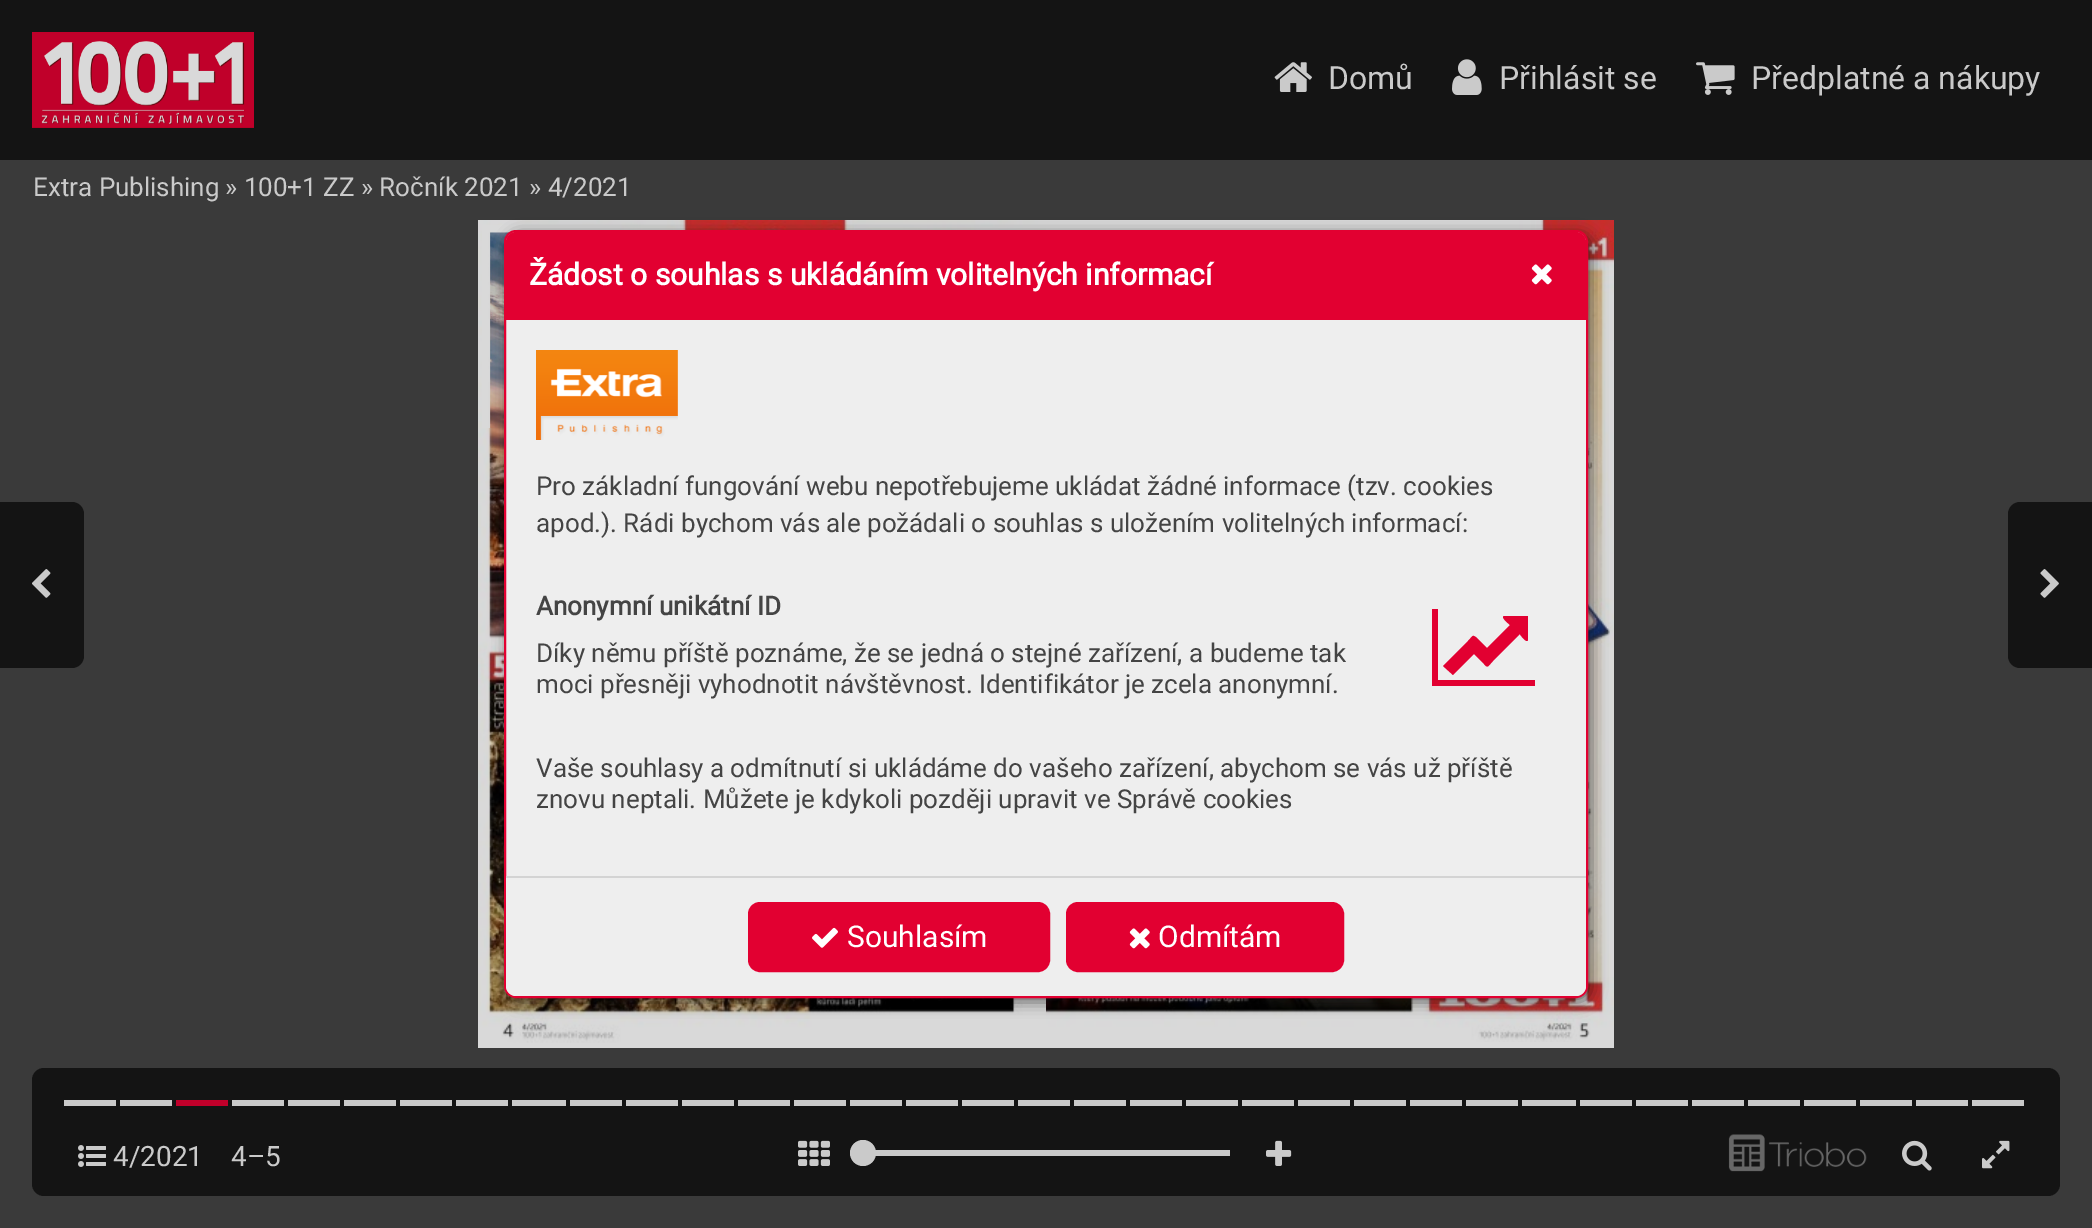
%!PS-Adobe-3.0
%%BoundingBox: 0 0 2092 1228
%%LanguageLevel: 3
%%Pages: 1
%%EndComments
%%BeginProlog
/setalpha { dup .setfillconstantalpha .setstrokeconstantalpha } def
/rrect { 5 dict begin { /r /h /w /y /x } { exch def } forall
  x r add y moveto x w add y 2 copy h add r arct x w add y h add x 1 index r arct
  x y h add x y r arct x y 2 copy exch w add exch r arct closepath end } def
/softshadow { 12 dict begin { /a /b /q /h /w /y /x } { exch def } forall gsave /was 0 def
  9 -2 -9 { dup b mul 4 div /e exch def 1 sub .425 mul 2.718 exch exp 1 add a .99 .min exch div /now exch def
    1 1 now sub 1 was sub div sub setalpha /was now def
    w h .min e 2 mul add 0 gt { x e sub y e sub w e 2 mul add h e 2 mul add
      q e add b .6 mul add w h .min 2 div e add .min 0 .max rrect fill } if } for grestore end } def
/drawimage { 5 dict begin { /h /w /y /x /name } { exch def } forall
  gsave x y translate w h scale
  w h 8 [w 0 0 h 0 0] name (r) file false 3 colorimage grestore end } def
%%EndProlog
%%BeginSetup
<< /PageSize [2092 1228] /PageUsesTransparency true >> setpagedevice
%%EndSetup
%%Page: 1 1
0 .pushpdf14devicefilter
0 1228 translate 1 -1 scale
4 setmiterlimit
0.227 setgray
0 0 2092 1228 rectfill
0.078 setgray
0 0 2092 160 rectfill
(images/1.raw) 32 32 222 96 drawimage
(images/2.raw) 1274 62 38 30 drawimage
(images/3.raw) 1452 59 30 36 drawimage
(images/4.raw) 1696 62 39 33 drawimage
newpath 0 502 moveto 72 502 lineto 78.5 502 84 507.5 84 514 curveto 84 656 lineto 84 662.5 78.5 668 72 668 curveto 0 668 lineto closepath fill
(images/5.raw) 32 569 19 29 drawimage
newpath 2020 502 moveto 2092 502 lineto 2092 668 lineto 2020 668 lineto 2013.5 668 2008 662.5 2008 656 curveto 2008 514 lineto 2008 507.5 2013.5 502 2020 502 curveto closepath fill
(images/6.raw) 2040 569 19 29 drawimage
32 1068 2028 128 12 rrect fill
0.792 setgray
64 1100 52 6 rectfill
120 1100 52 6 rectfill
232 1100 52 6 rectfill
288 1100 52 6 rectfill
344 1100 52 6 rectfill
400 1100 52 6 rectfill
456 1100 52 6 rectfill
512 1100 54 6 rectfill
570 1100 52 6 rectfill
626 1100 52 6 rectfill
682 1100 52 6 rectfill
738 1100 52 6 rectfill
794 1100 52 6 rectfill
850 1100 52 6 rectfill
906 1100 52 6 rectfill
962 1100 52 6 rectfill
1018 1100 52 6 rectfill
1074 1100 52 6 rectfill
1130 1100 52 6 rectfill
1186 1100 52 6 rectfill
1242 1100 52 6 rectfill
1298 1100 52 6 rectfill
1354 1100 52 6 rectfill
1410 1100 52 6 rectfill
1466 1100 52 6 rectfill
1522 1100 54 6 rectfill
1580 1100 52 6 rectfill
1636 1100 52 6 rectfill
1692 1100 52 6 rectfill
1748 1100 52 6 rectfill
1804 1100 52 6 rectfill
1860 1100 52 6 rectfill
1916 1100 52 6 rectfill
1972 1100 52 6 rectfill
0.753 0 0.165 setrgbcolor
176 1100 52 6 rectfill
(images/7.raw) 78 1145 28 22 drawimage
(images/8.raw) 798 1140 32 26 drawimage
0.792 setgray
875 1150 355 6 rectfill
newpath 863 1153 13 0 360 arc closepath fill
(images/9.raw) 1266 1140 26 26 drawimage
(images/10.raw) 1728 1134 139 38 drawimage
(images/11.raw) 1902 1140 30 31 drawimage
(images/12.raw) 1982 1140 28 29 drawimage
0.851 setgray
478 1043 568 5 rectfill
(images/13.raw) 478 220 568 823 drawimage
(images/14.raw) 482 225 138 203 drawimage
1046 1042 568 6 rectfill
(images/15.raw) 1046 220 568 822 drawimage
0 setgray
508 234 1084 768 12 7.5 0.53 softshadow
0.933 setgray
505 231 1082 766 11 rrect gsave fill grestore
0.886 0 0.192 setrgbcolor
2 setlinewidth
stroke
newpath 516 232 moveto 1576 232 lineto 1581.5 232 1586 236.5 1586 242 curveto 1586 320 lineto 506 320 lineto 506 242 lineto 506 236.5 510.5 232 516 232 curveto closepath fill
(images/16.raw) 1531 264 21 21 drawimage
(images/17.raw) 536 350 142 90 drawimage
newpath 1535 680 moveto 1535 686 lineto 1432 686 lineto 1432 609 lineto 1438 609 lineto 1438 680 lineto closepath 1528 617 moveto 1528 640 lineto 1527 644 1520 635 1520 634 curveto 1493 661 lineto 1488 666 1488 669 1484 664 curveto 1474 654 lineto 1453 675 lineto 1443 666 lineto 1468 641 lineto 1473 636 1472 634 1477 638 curveto 1487 648 lineto 1510 625 lineto 1509 624 1500 617 1504 616 curveto 1527 616 lineto 1528 616 1528 616 1528 617 curveto closepath fill
0.933 setgray
newpath 506 876 moveto 1586 876 lineto 1586 986 lineto 1586 991.5 1581.5 996 1576 996 curveto 516 996 lineto 510.5 996 506 991.5 506 986 curveto closepath fill
0.827 setgray
506 876 1080 2 rectfill
0.886 0 0.192 setrgbcolor
749 903 300 68 11 rrect gsave fill grestore
stroke
(images/18.raw) 812 927 26 21 drawimage
1067 903 276 68 11 rrect gsave fill grestore
stroke
(images/16.raw) 1129 928 21 21 drawimage
/Roboto-Regular [32 0 0 -32 0 0] selectfont
0.792 setgray
1328 89 moveto (Domů) show
1499 89 moveto (Přihlásit se) show
1751 89 moveto (Předplatné a nákupy) show
/Roboto-Regular [26 0 0 -26 0 0] selectfont
33 196 moveto (Extra Publishing) show
225 196 moveto (» 100+1 ZZ » Ročník 2021 » 4/2021) show
/Roboto-Regular [28 0 0 -28 0 0] selectfont
113 1166 moveto (4/2021) show
231 1166 moveto (4–5) show
/Roboto-Bold [30 0 0 -30 0 0] selectfont
1 setgray
529 285 moveto (Žádost o souhlas s ukládáním volitelných informací) show
/Roboto-Regular [26 0 0 -26 0 0] selectfont
0.267 setgray
536 495 moveto (Pro základní fungování webu nepotřebujeme ukládat žádné informace \(tzv. cookies) show
536 532 moveto (apod.\). Rádi bychom vás ale požádali o souhlas s uložením volitelných informací:) show
/Roboto-Bold [26 0 0 -26 0 0] selectfont
536 615 moveto (Anonymní unikátní ID) show
/Roboto-Regular [26 0 0 -26 0 0] selectfont
536 662 moveto (Díky němu příště poznáme, že se jedná o stejné zařízení, a budeme tak) show
536 693 moveto (moci přesněji vyhodnotit návštěvnost. Identifikátor je zcela anonymní.) show
536 777 moveto (Vaše souhlasy a odmítnutí si ukládáme do vašeho zařízení, abychom se vás už příště) show
536 808 moveto (znovu neptali. Můžete je kdykoli později upravit ve Správě cookies) show
/Roboto-Regular [30 0 0 -30 0 0] selectfont
1 setgray
847 947 moveto (Souhlasím) show
1158 947 moveto (Odmítám) show
.poppdf14devicefilter showpage
%%EOF
